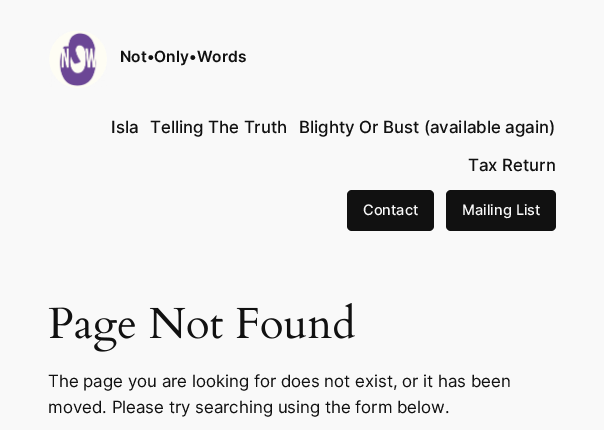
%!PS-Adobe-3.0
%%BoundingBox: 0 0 604 430
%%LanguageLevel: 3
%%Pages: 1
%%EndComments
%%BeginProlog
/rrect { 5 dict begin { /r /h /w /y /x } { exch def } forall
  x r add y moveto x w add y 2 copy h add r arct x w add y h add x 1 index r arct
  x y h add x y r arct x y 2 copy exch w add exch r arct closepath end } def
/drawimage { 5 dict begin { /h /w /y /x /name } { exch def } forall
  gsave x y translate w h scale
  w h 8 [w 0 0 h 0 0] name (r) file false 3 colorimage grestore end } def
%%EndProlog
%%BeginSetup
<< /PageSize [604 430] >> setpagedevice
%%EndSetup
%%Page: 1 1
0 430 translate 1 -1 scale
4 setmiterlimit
0.976 setgray
0 0 604 430 rectfill
(images/1.raw) 49 31 58 57 drawimage
0.067 setgray
347 190 87 41 5 rrect fill
446 190 110 41 5 rrect fill
(images/2.raw) 48 303 307 49 drawimage
/Inter-SemiBold [15.5 0 0 -15.5 0 0] selectfont
120 62 moveto (Not•Only•Words) show
/Inter-Medium [16.8 0 0 -16.8 0 0] selectfont
111 133 moveto (Isla) show
150 133 moveto (Telling The Truth) show
299 133 moveto (Blighty Or Bust \(available again\)) show
468 171 moveto (Tax Return) show
/Inter-Medium [14.5 0 0 -14.5 0 0] selectfont
0.976 setgray
363 215 moveto (Contact) show
462 215 moveto (Mailing List) show
/Inter-Regular [16.8 0 0 -16.8 0 0] selectfont
0.067 setgray
48 387 moveto (The page you are looking for does not exist, or it has been) show
48 413 moveto (moved. Please try searching using the form below.) show
showpage
%%EOF
